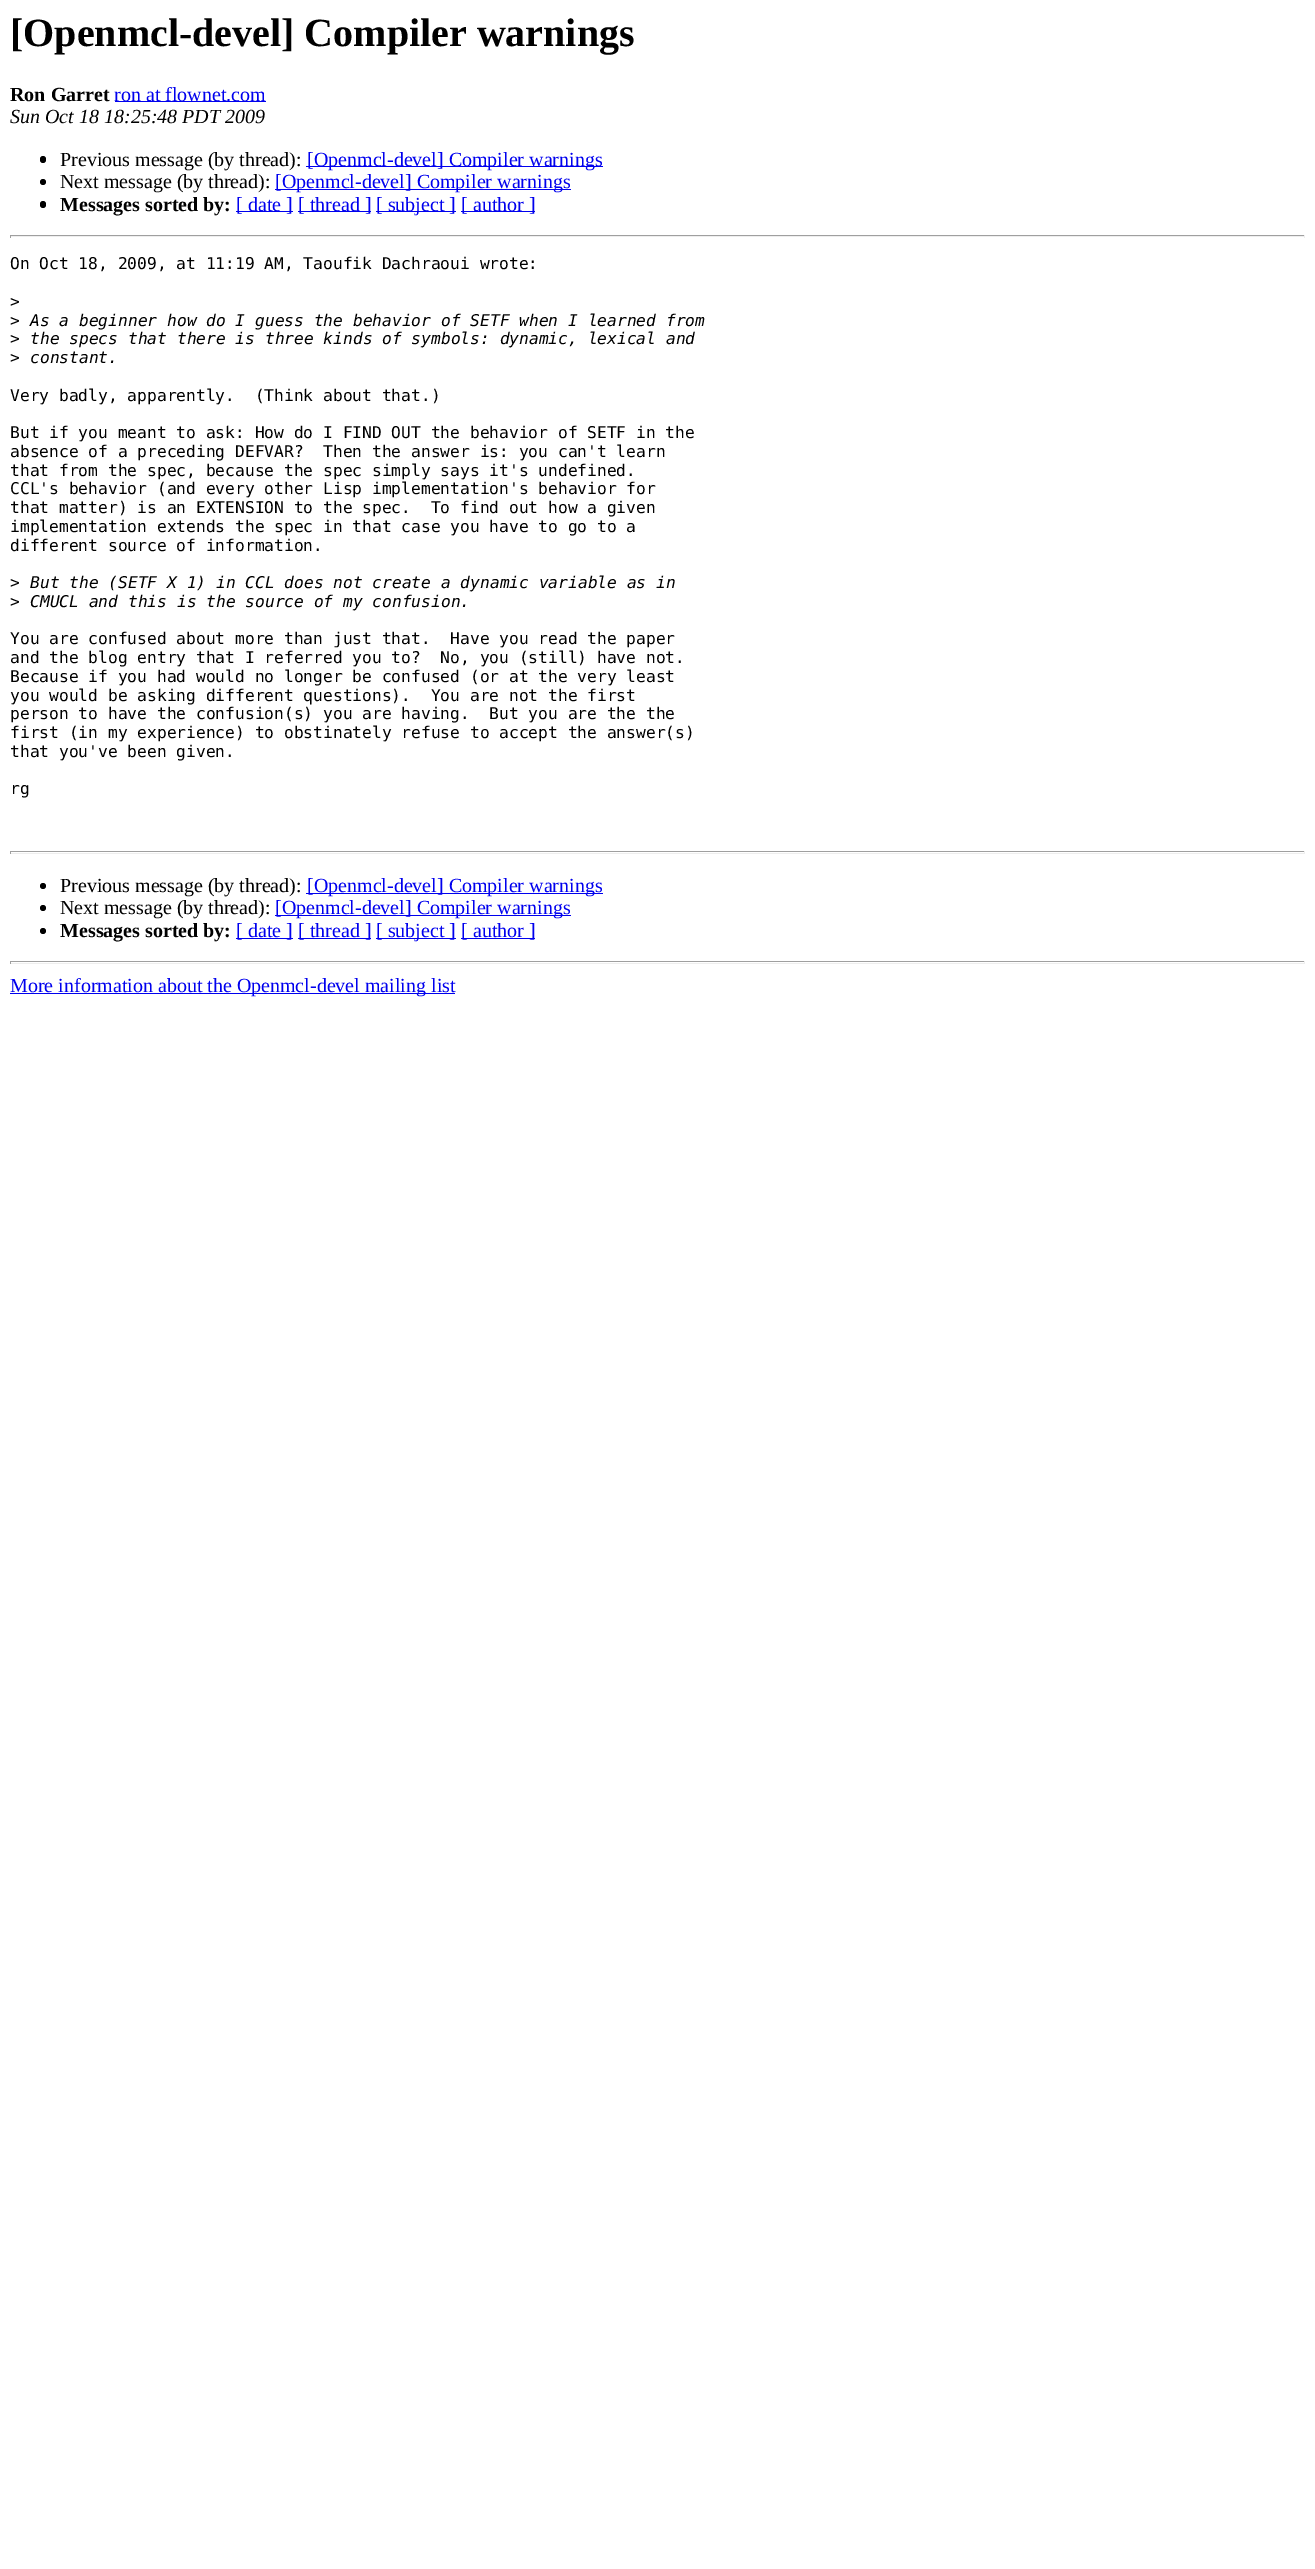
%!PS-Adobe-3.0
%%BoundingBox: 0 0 1315 2569
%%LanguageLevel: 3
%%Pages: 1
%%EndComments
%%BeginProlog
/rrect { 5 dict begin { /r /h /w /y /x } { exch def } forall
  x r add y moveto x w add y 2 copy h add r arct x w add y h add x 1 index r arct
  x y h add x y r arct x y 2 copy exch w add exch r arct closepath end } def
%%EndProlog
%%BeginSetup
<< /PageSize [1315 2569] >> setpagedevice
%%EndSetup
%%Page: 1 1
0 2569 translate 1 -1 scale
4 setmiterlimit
1 setgray
0 0 1315 2569 rectfill
0 0 0.933 setrgbcolor
115 101 151 1 rectfill
0 setgray
40 156 6 7 3 rrect fill
0 0 0.933 setrgbcolor
306 166 297 1 rectfill
0 setgray
newpath 43 182 3 0 360 arc closepath fill
0 0 0.933 setrgbcolor
275 189 296 1 rectfill
0 setgray
40 201 6 7 3 rrect fill
0 0 0.933 setrgbcolor
236 211 57 1 rectfill
298 211 73 1 rectfill
376 211 80 1 rectfill
461 211 74 1 rectfill
0.624 setgray
10 235 1295 1 rectfill
0.933 setgray
1304 235 1 3 rectfill
10 236 1295 1 rectfill
0.624 setgray
10 235 1 3 rectfill
10 851 1295 1 rectfill
0.933 setgray
1304 851 1 3 rectfill
10 853 1295 1 rectfill
0.624 setgray
10 851 1 3 rectfill
0 setgray
newpath 43 886 3 0 360 arc closepath fill
0 0 0.933 setrgbcolor
306 893 297 1 rectfill
0 setgray
newpath 43 908 3 0 360 arc closepath fill
0 0 0.933 setrgbcolor
275 915 296 1 rectfill
0 setgray
newpath 43 931 3 0 360 arc closepath fill
0 0 0.933 setrgbcolor
236 938 57 1 rectfill
298 938 73 1 rectfill
376 938 80 1 rectfill
461 938 74 1 rectfill
0.624 setgray
10 961 1295 1 rectfill
0.933 setgray
1304 961 1 3 rectfill
10 963 1295 1 rectfill
0.624 setgray
10 961 1 3 rectfill
0 0 0.933 setrgbcolor
10 993 445 1 rectfill
/LiberationSerif-Bold [40 0 0 -40 0 0] selectfont
0 setgray
10 46 moveto ([Openmcl-devel] Compiler warnings) show
/LiberationSerif-Bold [20 0 0 -20 0 0] selectfont
10 101 moveto (Ron Garret) show
/LiberationSerif-Regular [20 0 0 -20 0 0] selectfont
0 0 0.933 setrgbcolor
114 101 moveto (ron at flownet.com) show
/LiberationSerif-Italic [20 0 0 -20 0 0] selectfont
0 setgray
10 123 moveto (Sun Oct 18 18:25:48 PDT 2009) show
/LiberationSerif-Regular [20 0 0 -20 0 0] selectfont
60 166 moveto (Previous message \(by thread\):) show
0 0 0.933 setrgbcolor
307 166 moveto ([Openmcl-devel] Compiler warnings) show
0 setgray
60 188 moveto (Next message \(by thread\):) show
0 0 0.933 setrgbcolor
275 188 moveto ([Openmcl-devel] Compiler warnings) show
/LiberationSerif-Bold [20 0 0 -20 0 0] selectfont
0 setgray
60 211 moveto (Messages sorted by:) show
/LiberationSerif-Regular [20 0 0 -20 0 0] selectfont
0 0 0.933 setrgbcolor
236 211 moveto ([ date ]) show
298 211 moveto ([ thread ]) show
376 211 moveto ([ subject ]) show
461 211 moveto ([ author ]) show
/DejaVuSansMono-Regular [16.25 0 0 -16.25 0 0] selectfont
0 setgray
10 269 moveto (On Oct 18, 2009, at 11:19 AM, Taoufik Dachraoui wrote:) show
10 307 moveto (>) show
10 326 moveto (>) show
/DejaVuSansMono-Italic [16.25 0 0 -16.25 0 0] selectfont
30 326 moveto (As a beginner how do I guess the behavior of SETF when I learned from) show
/DejaVuSansMono-Regular [16.25 0 0 -16.25 0 0] selectfont
10 344 moveto (>) show
/DejaVuSansMono-Italic [16.25 0 0 -16.25 0 0] selectfont
30 344 moveto (the specs that there is three kinds of symbols: dynamic, lexical and) show
/DejaVuSansMono-Regular [16.25 0 0 -16.25 0 0] selectfont
10 363 moveto (>) show
/DejaVuSansMono-Italic [16.25 0 0 -16.25 0 0] selectfont
30 363 moveto (constant.) show
/DejaVuSansMono-Regular [16.25 0 0 -16.25 0 0] selectfont
10 401 moveto (Very badly, apparently.  \(Think about that.\)) show
10 438 moveto (But if you meant to ask: How do I FIND OUT the behavior of SETF in the) show
10 457 moveto (absence of a preceding DEFVAR?  Then the answer is: you can't learn) show
10 476 moveto (that from the spec, because the spec simply says it's undefined.) show
10 494 moveto (CCL's behavior \(and every other Lisp implementation's behavior for) show
10 513 moveto (that matter\) is an EXTENSION to the spec.  To find out how a given) show
10 532 moveto (implementation extends the spec in that case you have to go to a) show
10 551 moveto (different source of information.) show
10 588 moveto (>) show
/DejaVuSansMono-Italic [16.25 0 0 -16.25 0 0] selectfont
30 588 moveto (But the \(SETF X 1\) in CCL does not create a dynamic variable as in) show
/DejaVuSansMono-Regular [16.25 0 0 -16.25 0 0] selectfont
10 607 moveto (>) show
/DejaVuSansMono-Italic [16.25 0 0 -16.25 0 0] selectfont
30 607 moveto (CMUCL and this is the source of my confusion.) show
/DejaVuSansMono-Regular [16.25 0 0 -16.25 0 0] selectfont
10 644 moveto (You are confused about more than just that.  Have you read the paper) show
10 663 moveto (and the blog entry that I referred you to?  No, you \(still\) have not.) show
10 682 moveto (Because if you had would no longer be confused \(or at the very least) show
10 701 moveto (you would be asking different questions\).  You are not the first) show
10 719 moveto (person to have the confusion\(s\) you are having.  But you are the the) show
10 738 moveto (first \(in my experience\) to obstinately refuse to accept the answer\(s\)) show
10 757 moveto (that you've been given.) show
10 794 moveto (rg) show
/LiberationSerif-Regular [20 0 0 -20 0 0] selectfont
60 892 moveto (Previous message \(by thread\):) show
0 0 0.933 setrgbcolor
307 892 moveto ([Openmcl-devel] Compiler warnings) show
0 setgray
60 914 moveto (Next message \(by thread\):) show
0 0 0.933 setrgbcolor
275 914 moveto ([Openmcl-devel] Compiler warnings) show
/LiberationSerif-Bold [20 0 0 -20 0 0] selectfont
0 setgray
60 937 moveto (Messages sorted by:) show
/LiberationSerif-Regular [20 0 0 -20 0 0] selectfont
0 0 0.933 setrgbcolor
236 937 moveto ([ date ]) show
298 937 moveto ([ thread ]) show
376 937 moveto ([ subject ]) show
461 937 moveto ([ author ]) show
10 992 moveto (More information about the Openmcl-devel mailing list) show
showpage
%%EOF
